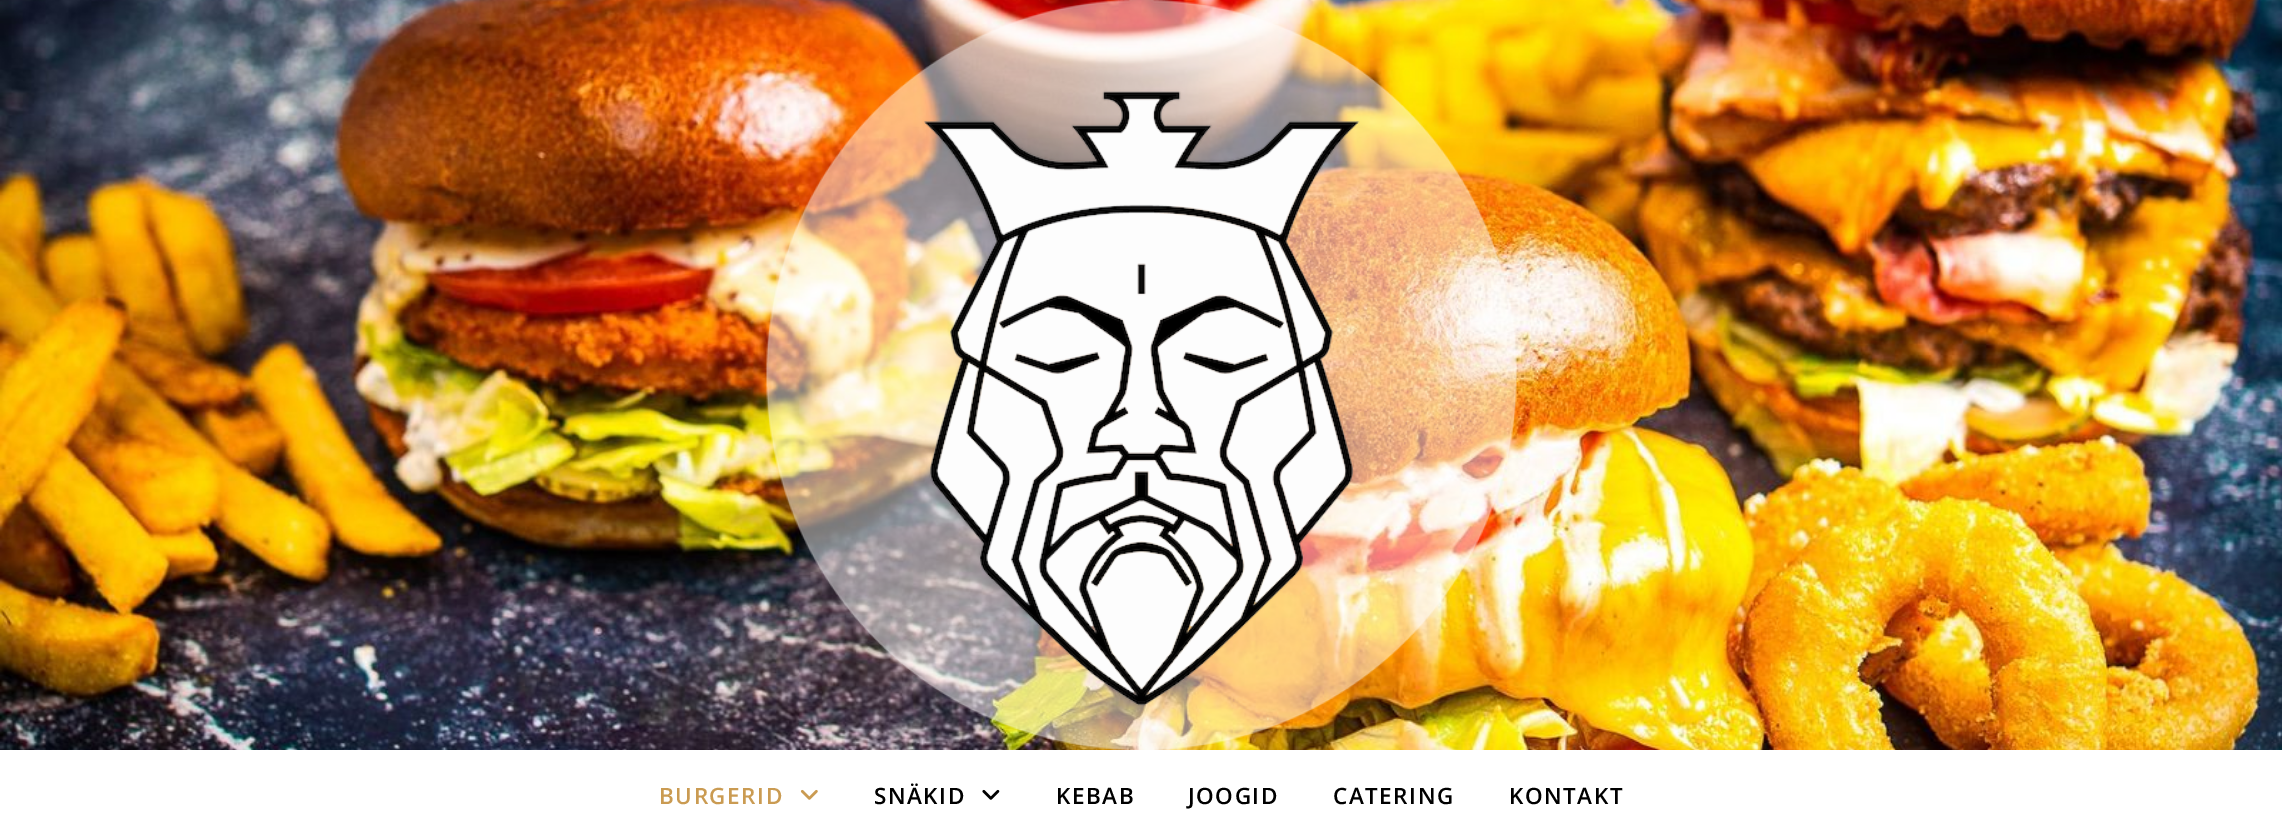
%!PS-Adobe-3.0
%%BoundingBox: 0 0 2282 814
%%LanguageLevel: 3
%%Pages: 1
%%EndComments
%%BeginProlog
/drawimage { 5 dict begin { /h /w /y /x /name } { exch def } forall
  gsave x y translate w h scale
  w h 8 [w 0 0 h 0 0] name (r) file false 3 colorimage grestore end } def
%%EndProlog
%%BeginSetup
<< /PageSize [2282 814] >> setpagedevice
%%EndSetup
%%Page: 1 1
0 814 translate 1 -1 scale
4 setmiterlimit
1 setgray
0 0 2282 814 rectfill
(images/1.raw) 0 0 2282 750 drawimage
(images/2.raw) 766 0 751 750 drawimage
(images/3.raw) 800 789 18 11 drawimage
(images/4.raw) 982 789 18 11 drawimage
/OpenSans-SemiBold [22.5 0 0 -22.5 0 0] selectfont
0.792 0.608 0.322 setrgbcolor
659 804 moveto 1.5 0 (BURGERID) ashow
0 setgray
874 804 moveto 1.5 0 (SNÄKID) ashow
1056 804 moveto 1.5 0 (KEBAB) ashow
1188 804 moveto 1.5 0 (JOOGID) ashow
1333 804 moveto 1.5 0 (CATERING) ashow
1509 804 moveto 1.5 0 (KONTAKT) ashow
showpage
%%EOF
